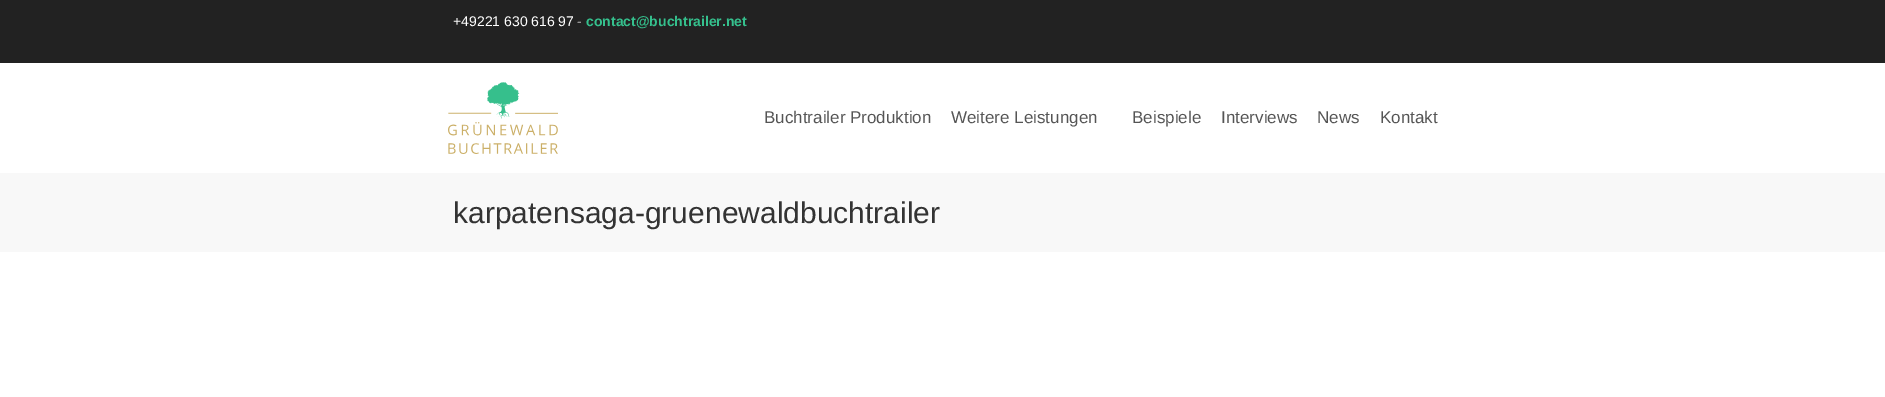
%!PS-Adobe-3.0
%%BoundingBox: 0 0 1885 397
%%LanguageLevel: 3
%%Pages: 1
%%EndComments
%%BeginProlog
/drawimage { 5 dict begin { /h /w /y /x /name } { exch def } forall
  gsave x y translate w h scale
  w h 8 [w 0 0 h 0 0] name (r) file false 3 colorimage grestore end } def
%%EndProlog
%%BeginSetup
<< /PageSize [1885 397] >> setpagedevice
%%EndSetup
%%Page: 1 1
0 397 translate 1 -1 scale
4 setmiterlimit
1 setgray
0 0 1885 397 rectfill
0.133 setgray
0 0 1885 63 rectfill
(images/1.raw) 448 82 110 72 drawimage
0.973 setgray
0 173 1885 79 rectfill
/LiberationSans-Regular [14 0 0 -14 0 0] selectfont
1 setgray
453 26 moveto (+49221 630 616 97) show
0.741 setgray
577 26 moveto (-) show
/LiberationSans-Bold [14 0 0 -14 0 0] selectfont
0.208 0.753 0.553 setrgbcolor
586 26 moveto (contact@buchtrailer.net) show
/LiberationSans-Regular [17 0 0 -17 0 0] selectfont
0.333 setgray
764 123 moveto (Buchtrailer Produktion) show
951 123 moveto (Weitere Leistungen) show
1132 123 moveto (Beispiele) show
1221 123 moveto (Interviews) show
1317 123 moveto (News) show
1380 123 moveto (Kontakt) show
/LiberationSans-Regular [30 0 0 -30 0 0] selectfont
0.2 setgray
453 223 moveto (karpatensaga-gruenewaldbuchtrailer) show
showpage
%%EOF
